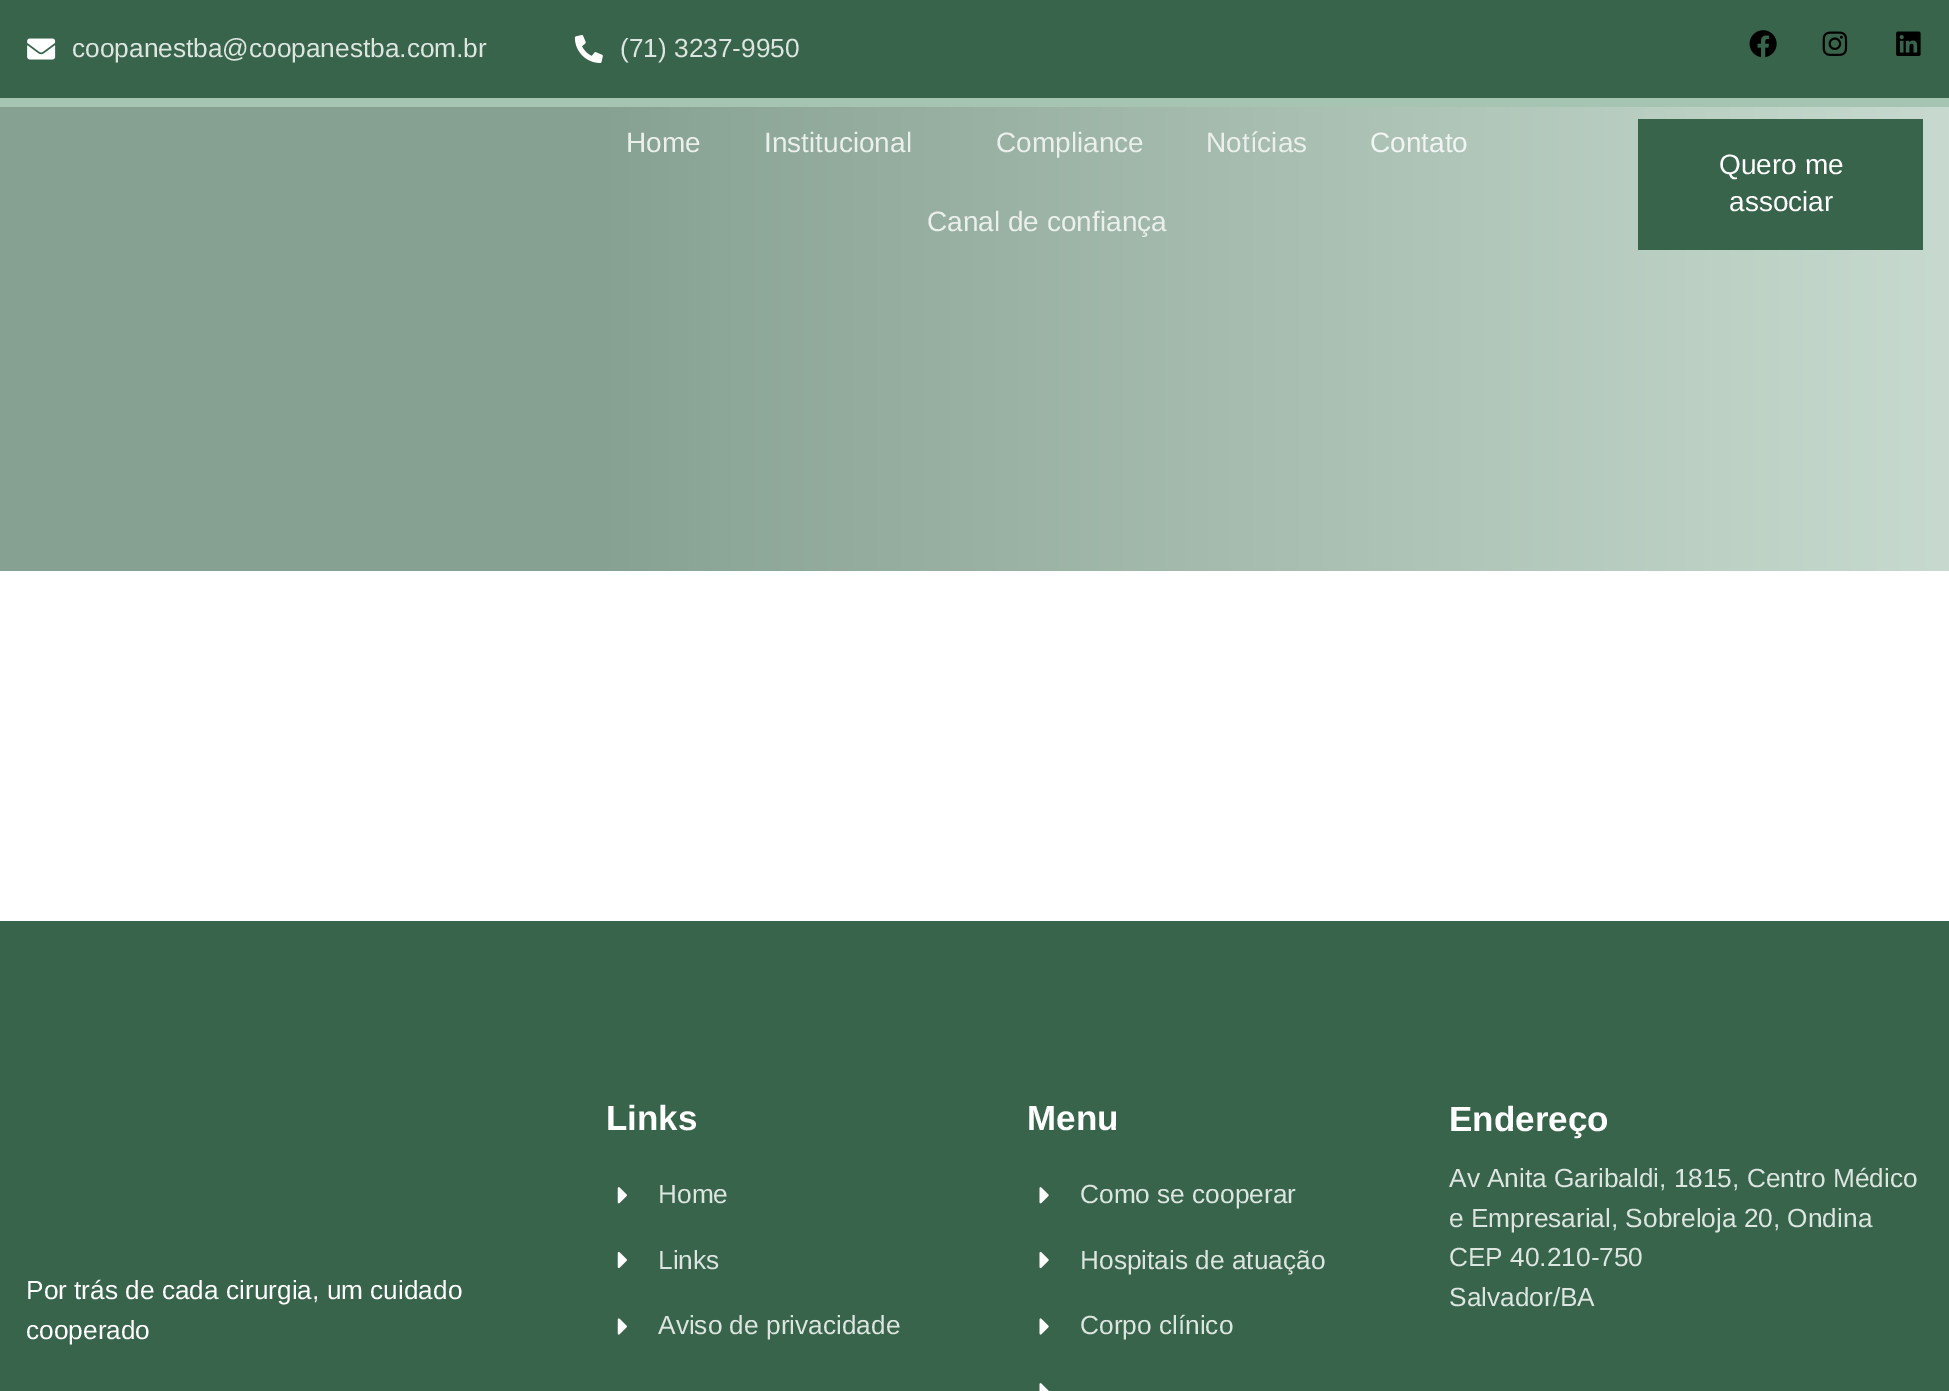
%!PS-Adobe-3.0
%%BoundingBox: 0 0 1949 1391
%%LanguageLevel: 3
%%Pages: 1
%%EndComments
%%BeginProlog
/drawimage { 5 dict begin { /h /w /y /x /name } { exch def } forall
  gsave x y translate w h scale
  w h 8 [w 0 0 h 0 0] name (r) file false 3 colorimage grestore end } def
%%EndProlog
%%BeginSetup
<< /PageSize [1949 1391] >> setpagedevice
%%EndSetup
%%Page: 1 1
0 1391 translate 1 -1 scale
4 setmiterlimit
1 setgray
0 0 1949 1391 rectfill
0.216 0.392 0.29 setrgbcolor
0 0 1949 98 rectfill
0.647 0.769 0.698 setrgbcolor
0 98 1949 9 rectfill
(images/1.raw) 27 38 29 22 drawimage
(images/2.raw) 574 35 29 28 drawimage
(images/3.raw) 1749 30 28 28 drawimage
(images/4.raw) 1822 31 26 25 drawimage
(images/5.raw) 1896 31 25 25 drawimage
gsave newpath 0 107 moveto 1949 107 lineto 1949 571 lineto 0 571 lineto closepath clip newpath
<< /ShadingType 2 /ColorSpace /DeviceRGB /Coords [0 330 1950 330] /Extend [true true] /Function << /FunctionType 3 /Domain [0 1] /Functions [<< /FunctionType 2 /Domain [0 1] /C0 [0.525 0.631 0.569] /C1 [0.525 0.631 0.569] /N 1 >> << /FunctionType 2 /Domain [0 1] /C0 [0.525 0.631 0.569] /C1 [0.784 0.855 0.812] /N 1 >>] /Bounds [0.3] /Encode [0 1 0 1] >> >> shfill grestore
0.216 0.392 0.29 setrgbcolor
1638 119 285 131 rectfill
0 921 1949 470 rectfill
(images/6.raw) 617 1187 10 17 drawimage
(images/7.raw) 617 1251 10 18 drawimage
(images/8.raw) 617 1318 10 17 drawimage
(images/9.raw) 1039 1187 10 17 drawimage
(images/10.raw) 1039 1251 10 18 drawimage
(images/11.raw) 1039 1318 10 17 drawimage
(images/12.raw) 1039 1383 10 8 drawimage
/LiberationSans-Regular [26.25 0 0 -26.25 0 0] selectfont
0.867 0.898 0.878 setrgbcolor
72 57 moveto (coopanestba@coopanestba.com.br) show
620 57 moveto (\(71\) 3237-9950) show
/LiberationSans-Regular [28 0 0 -28 0 0] selectfont
0.922 0.941 0.929 setrgbcolor
626 152 moveto (Home) show
764 152 moveto (Institucional) show
996 152 moveto (Compliance) show
1206 152 moveto (Notícias) show
0.945 0.961 0.953 setrgbcolor
1370 152 moveto (Contato) show
0.922 0.941 0.929 setrgbcolor
927 231 moveto (Canal de confiança) show
1 setgray
1719 174 moveto (Quero me) show
1729 211 moveto (associar) show
/LiberationSans-Regular [26.25 0 0 -26.25 0 0] selectfont
26 1299 moveto (Por trás de cada cirurgia, um cuidado) show
26 1339 moveto (cooperado) show
/LiberationSans-Bold [35 0 0 -35 0 0] selectfont
606 1130 moveto (Links) show
/LiberationSans-Regular [26.25 0 0 -26.25 0 0] selectfont
0.867 0.898 0.878 setrgbcolor
658 1203 moveto (Home) show
658 1269 moveto (Links) show
658 1334 moveto (Aviso de privacidade) show
/LiberationSans-Bold [35 0 0 -35 0 0] selectfont
1 setgray
1027 1130 moveto (Menu) show
/LiberationSans-Regular [26.25 0 0 -26.25 0 0] selectfont
0.867 0.898 0.878 setrgbcolor
1080 1203 moveto (Como se cooperar) show
1080 1269 moveto (Hospitais de atuação) show
1080 1334 moveto (Corpo clínico) show
/LiberationSans-Bold [35 0 0 -35 0 0] selectfont
1 setgray
1449 1131 moveto (Endereço) show
/LiberationSans-Regular [26.25 0 0 -26.25 0 0] selectfont
0.867 0.898 0.878 setrgbcolor
1449 1187 moveto (Av Anita Garibaldi, 1815, Centro Médico) show
1449 1227 moveto (e Empresarial, Sobreloja 20, Ondina) show
1449 1266 moveto (CEP 40.210-750) show
1449 1306 moveto (Salvador/BA) show
showpage
%%EOF
